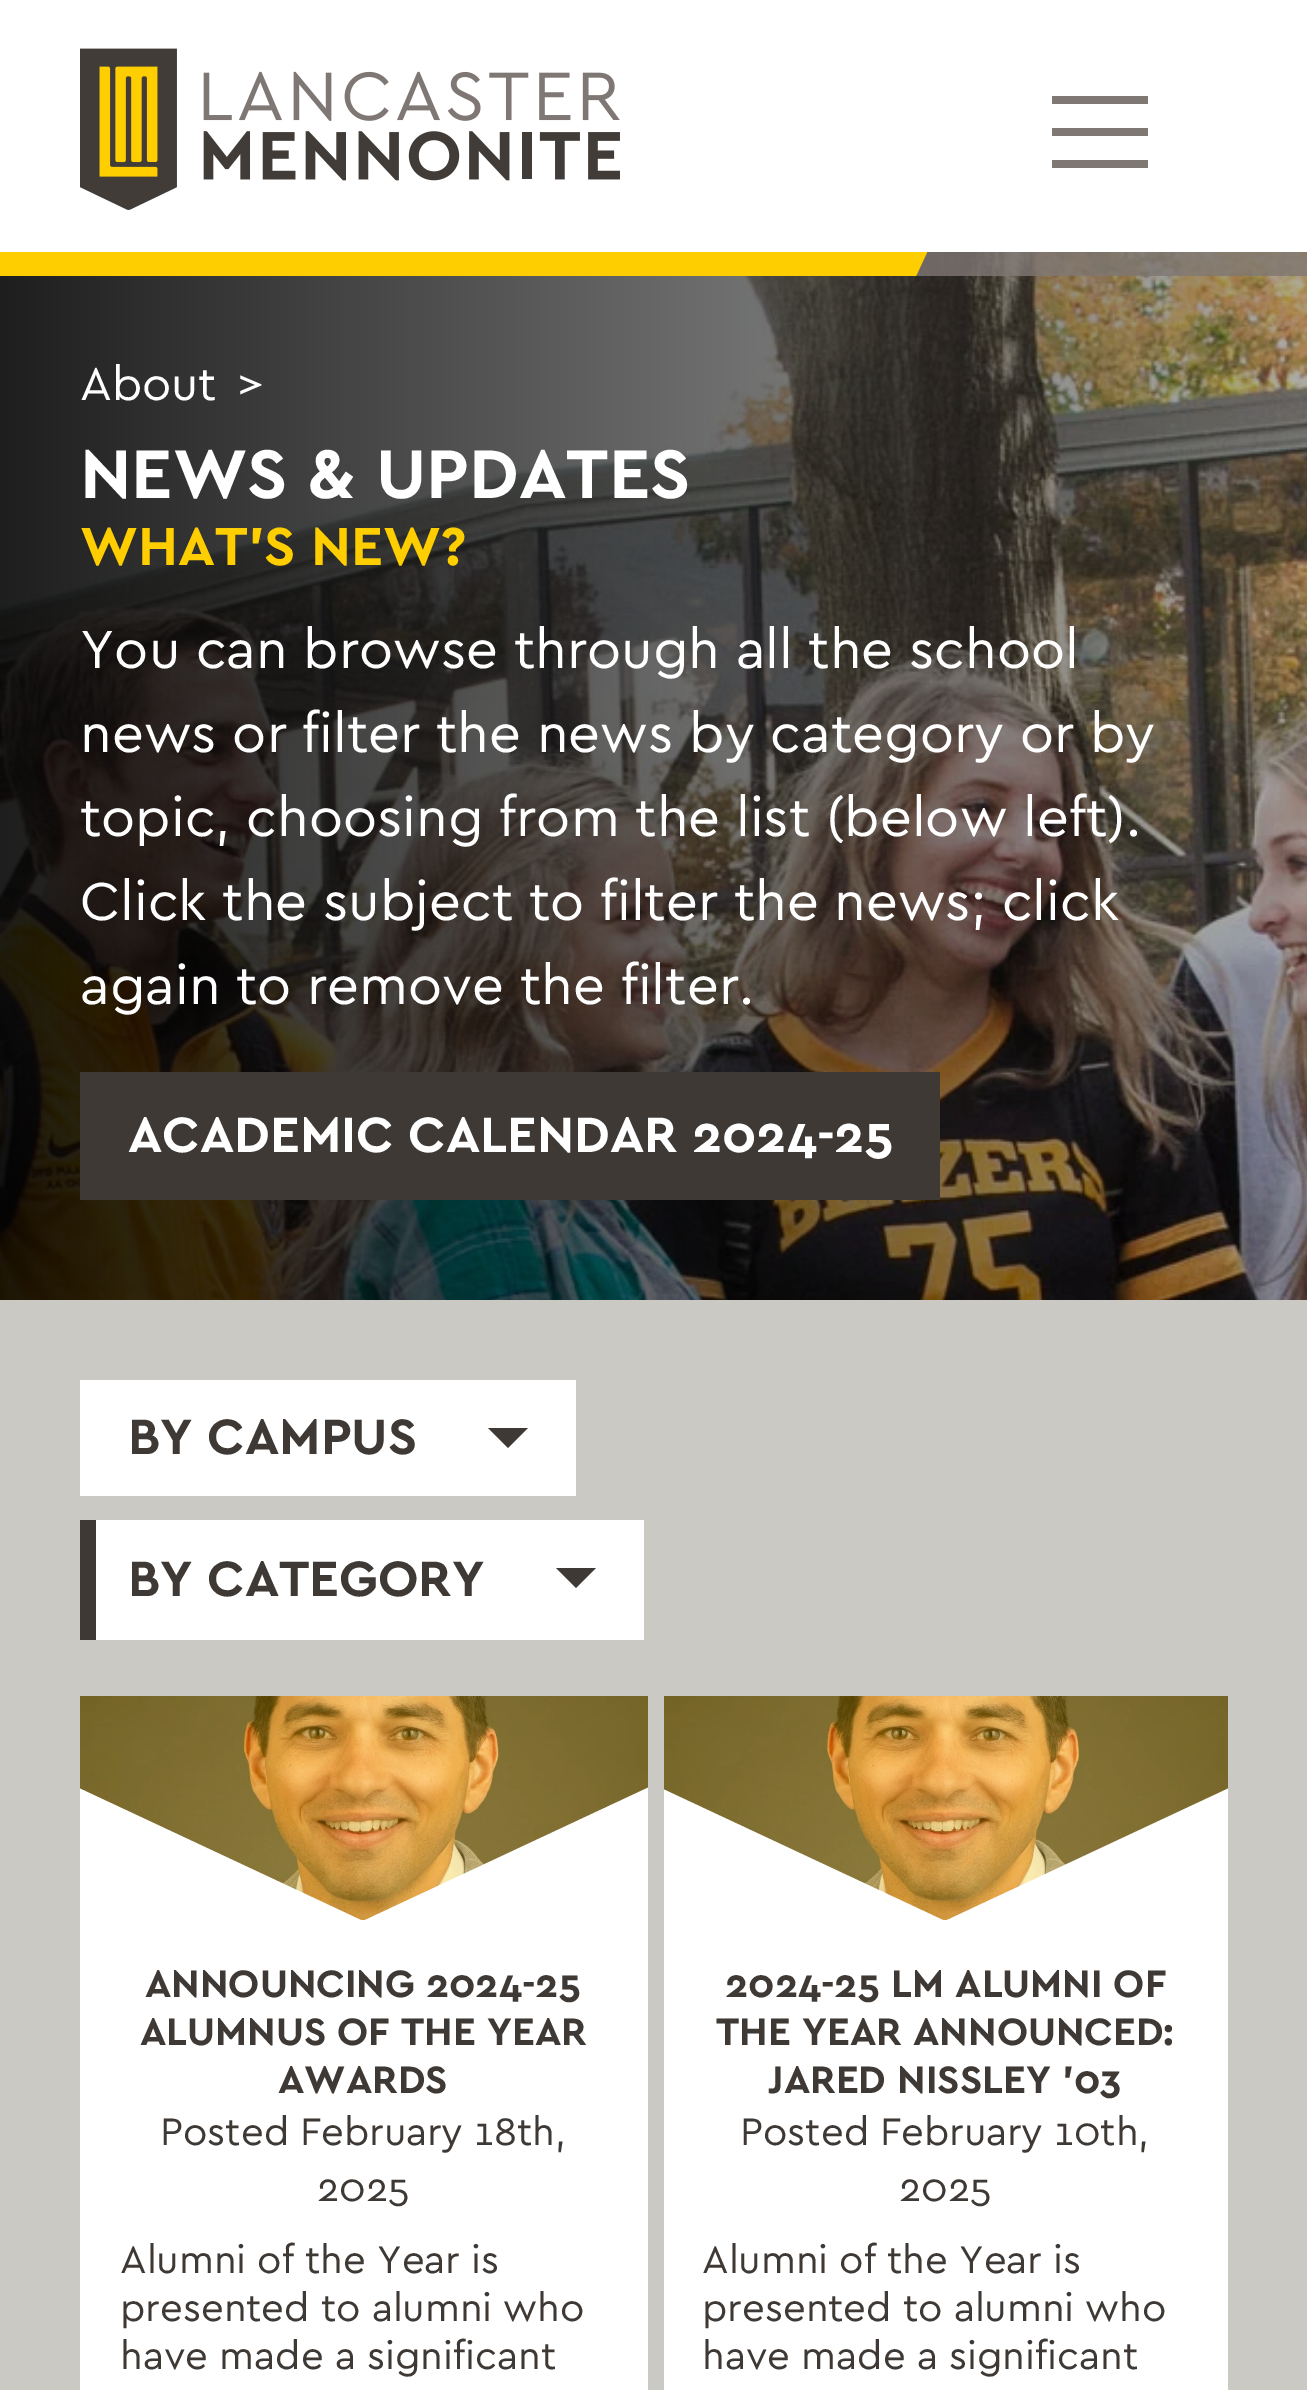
%!PS-Adobe-3.0
%%BoundingBox: 0 0 1307 2390
%%LanguageLevel: 3
%%Pages: 1
%%EndComments
%%BeginProlog
/setalpha { dup .setfillconstantalpha .setstrokeconstantalpha } def
/drawimage { 5 dict begin { /h /w /y /x /name } { exch def } forall
  gsave x y translate w h scale
  w h 8 [w 0 0 h 0 0] name (r) file false 3 colorimage grestore end } def
%%EndProlog
%%BeginSetup
<< /PageSize [1307 2390] /PageUsesTransparency true >> setpagedevice
%%EndSetup
%%Page: 1 1
0 .pushpdf14devicefilter
0 2390 translate 1 -1 scale
4 setmiterlimit
1 setgray
0 0 1307 2390 rectfill
(images/1.raw) 80 48 540 162 drawimage
0.498 0.467 0.451 setrgbcolor
1052 96 96 8 rectfill
1052 128 96 8 rectfill
1052 160 96 8 rectfill
(images/2.raw) 0 252 1307 1048 drawimage
0.8 setalpha
916 252 391 24 rectfill
1 setalpha
1 0.808 0 setrgbcolor
0 252 799 24 rectfill
gsave
200 252 900 24 rectclip
newpath 701 -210 moveto 1064 -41 lineto 895 321 lineto 532 152 lineto closepath fill
grestore
0.243 0.224 0.208 setrgbcolor
80 1072 860 128 rectfill
0.796 0.788 0.769 setrgbcolor
0 1300 1307 1090 rectfill
1 setgray
80 1380 496 116 rectfill
0.243 0.224 0.208 setrgbcolor
newpath 488 1428 moveto 528 1428 lineto 508 1448 lineto closepath fill
1 setgray
96 1520 548 120 rectfill
0.243 0.224 0.208 setrgbcolor
80 1520 16 120 rectfill
newpath 556 1568 moveto 596 1568 lineto 576 1588 lineto closepath fill
1 setgray
80 1920 568 470 rectfill
(images/3.raw) 80 1696 568 224 drawimage
gsave
80 1696 568 224 rectclip
newpath -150 1681 moveto 363 1921 lineto 124 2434 lineto -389 2194 lineto closepath fill
newpath 363 1921 moveto 876 1681 lineto 1115 2194 lineto 602 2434 lineto closepath fill
grestore
664 1920 564 470 rectfill
(images/4.raw) 664 1696 564 224 drawimage
gsave
664 1696 564 224 rectclip
newpath 432 1681 moveto 945 1921 lineto 706 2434 lineto 193 2194 lineto closepath fill
newpath 945 1921 moveto 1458 1681 lineto 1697 2194 lineto 1184 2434 lineto closepath fill
grestore
/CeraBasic-Regular [48 0 0 -48 0 0] selectfont
80 400 moveto (About) show
237 400 moveto (>) show
/CeraBasic-Bold [72 0 0 -72 0 0] selectfont
80 498 moveto (NEWS & UPDATES) show
/CeraBasic-Bold [56 0 0 -56 0 0] selectfont
1 0.808 0 setrgbcolor
80 565 moveto (WHAT'S NEW?) show
/CeraBasic-Regular [56 0 0 -56 0 0] selectfont
1 setgray
80 668 moveto (You can browse through all the school) show
80 752 moveto (news or filter the news by category or by) show
80 836 moveto (topic, choosing from the list \(below left\).) show
80 920 moveto (Click the subject to filter the news; click) show
80 1004 moveto (again to remove the filter.) show
/CeraBasic-Bold [52 0 0 -52 0 0] selectfont
128 1152 moveto (ACADEMIC CALENDAR 2024-25) show
0.243 0.224 0.208 setrgbcolor
128 1454 moveto (BY CAMPUS) show
128 1596 moveto (BY CATEGORY) show
/CeraBasic-Bold [40 0 0 -40 0 0] selectfont
145 1997 moveto (ANNOUNCING 2024-25) show
140 2045 moveto (ALUMNUS OF THE YEAR) show
278 2093 moveto (AWARDS) show
/CeraBasic-Regular [40 0 0 -40 0 0] selectfont
160 2145 moveto (Posted February 18th,) show
317 2201 moveto (2025) show
120 2273 moveto (Alumni of the Year is) show
120 2321 moveto (presented to alumni who) show
120 2369 moveto (have made a significant) show
/CeraBasic-Bold [40 0 0 -40 0 0] selectfont
725 1997 moveto (2024-25 LM ALUMNI OF) show
716 2045 moveto (THE YEAR ANNOUNCED:) show
768 2093 moveto (JARED NISSLEY ’03) show
/CeraBasic-Regular [40 0 0 -40 0 0] selectfont
740 2145 moveto (Posted February 10th,) show
899 2201 moveto (2025) show
702 2273 moveto (Alumni of the Year is) show
702 2321 moveto (presented to alumni who) show
702 2369 moveto (have made a significant) show
.poppdf14devicefilter showpage
%%EOF
